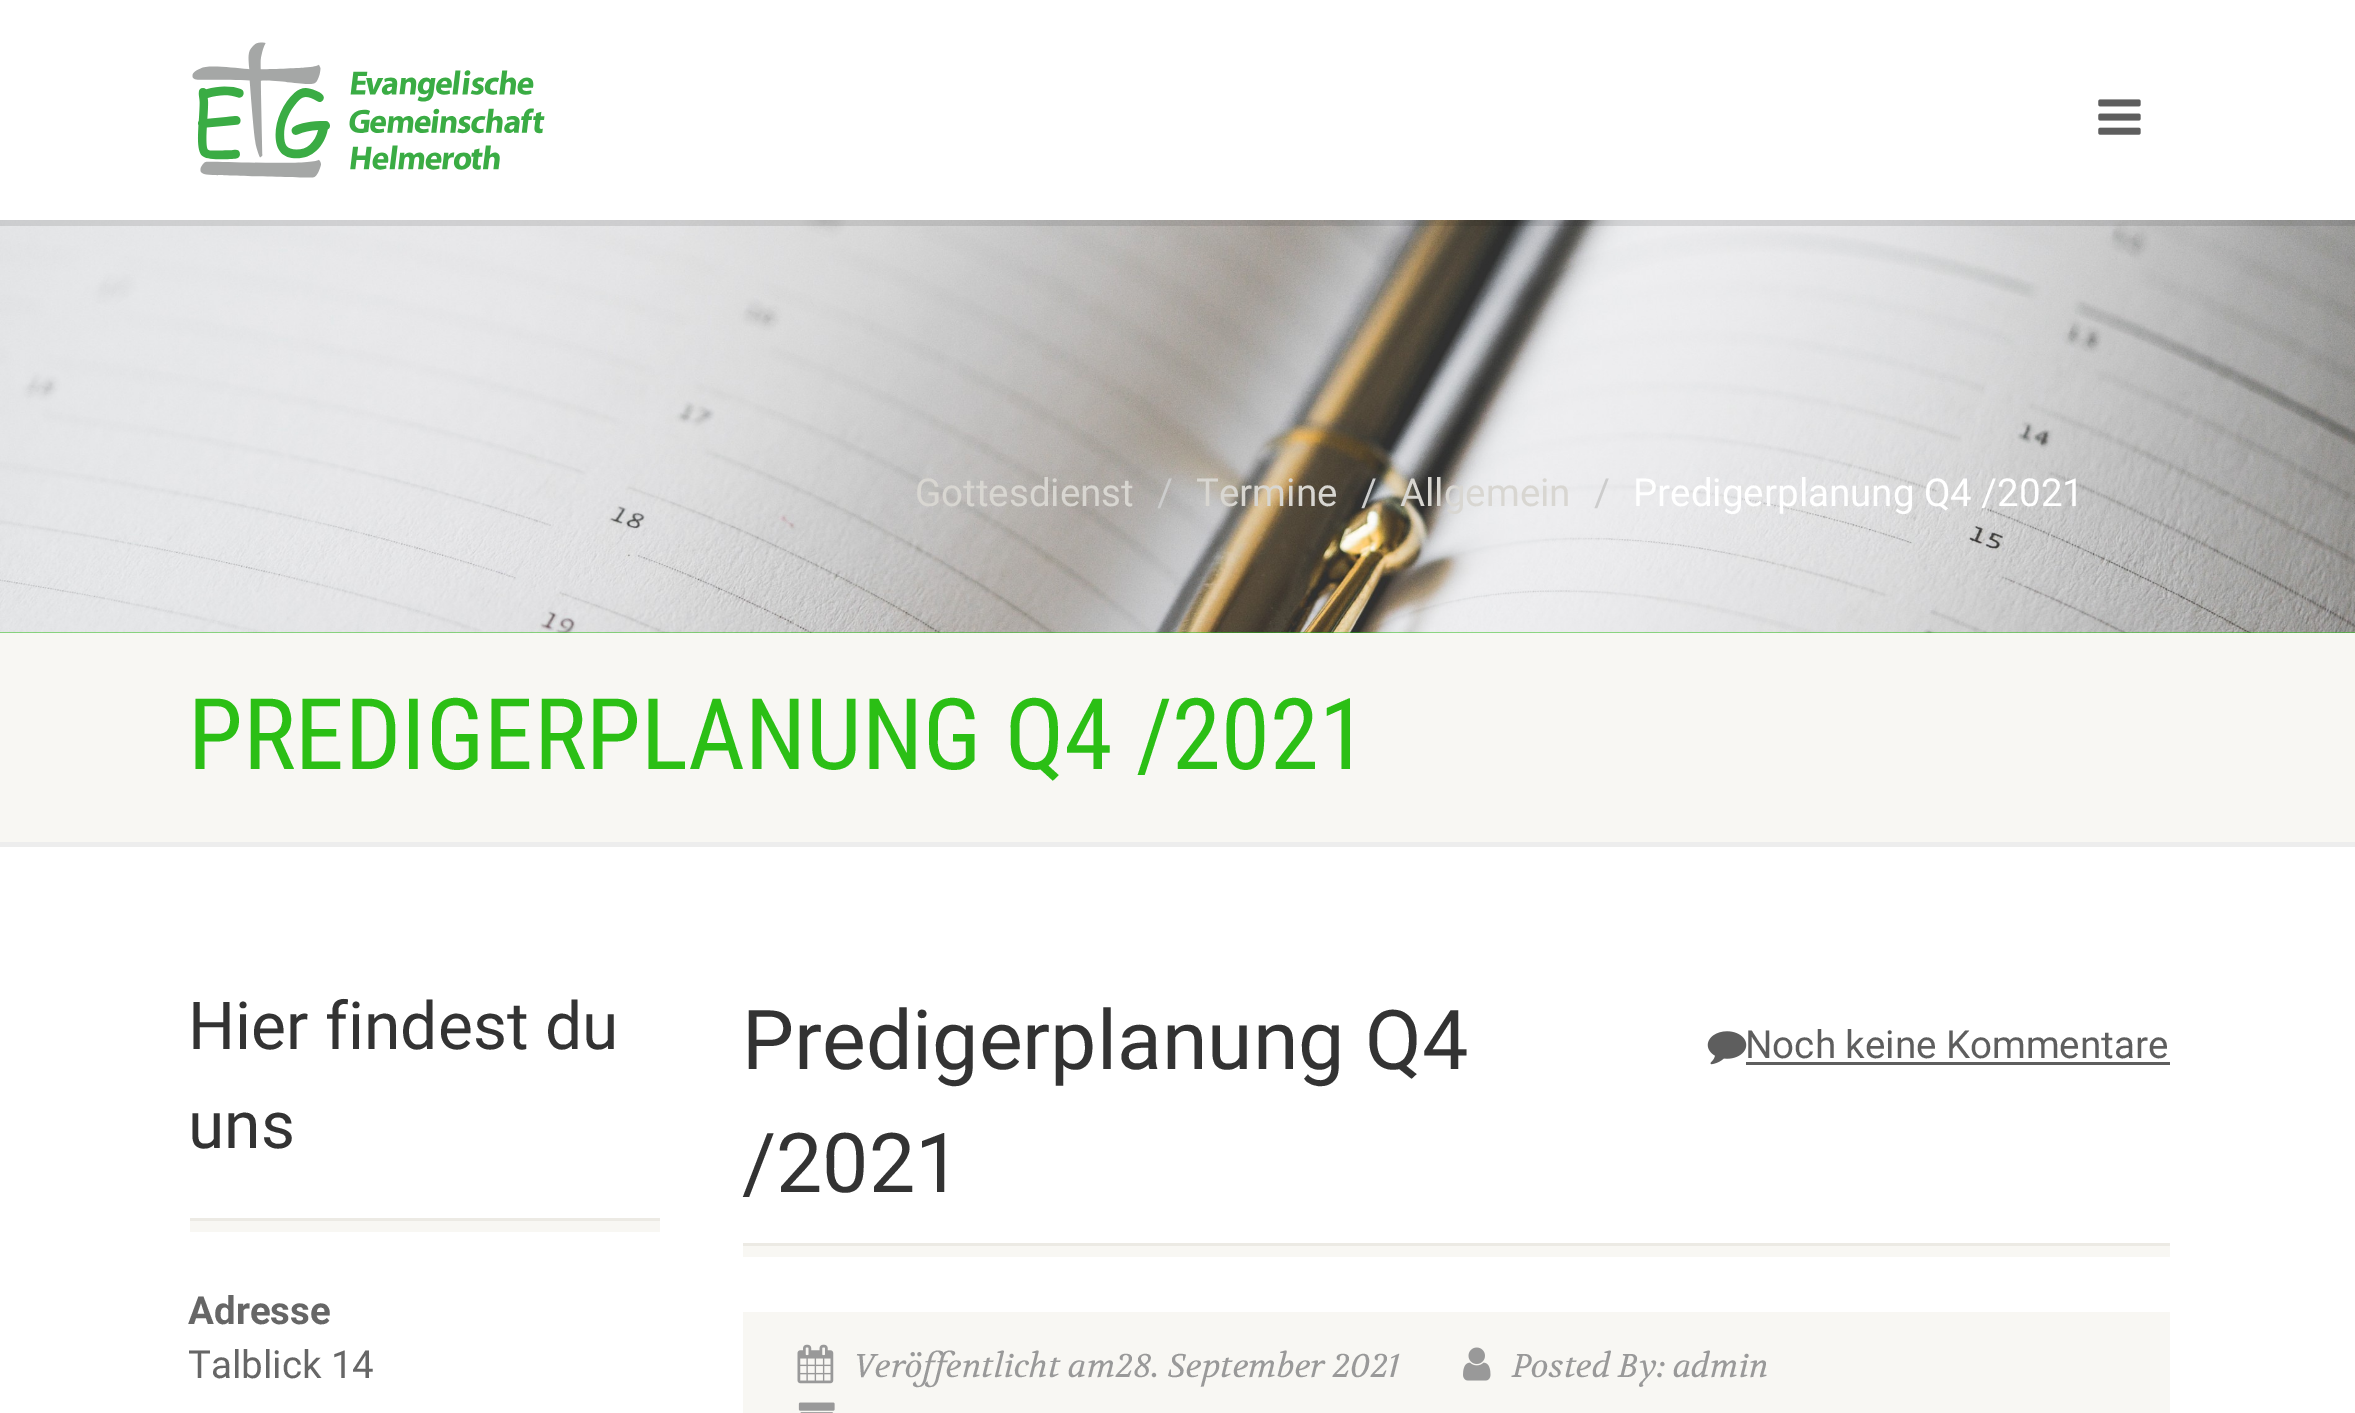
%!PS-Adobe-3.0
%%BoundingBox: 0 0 2355 1413
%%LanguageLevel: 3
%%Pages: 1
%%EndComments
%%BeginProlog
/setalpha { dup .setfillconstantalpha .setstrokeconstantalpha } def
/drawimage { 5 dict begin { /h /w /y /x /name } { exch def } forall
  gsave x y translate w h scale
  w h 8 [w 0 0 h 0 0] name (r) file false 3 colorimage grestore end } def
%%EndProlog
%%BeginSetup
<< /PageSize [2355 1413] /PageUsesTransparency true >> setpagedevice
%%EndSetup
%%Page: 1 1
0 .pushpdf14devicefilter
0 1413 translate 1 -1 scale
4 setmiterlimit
1 setgray
0 0 2355 1413 rectfill
0.169 0.749 0.082 setrgbcolor
0 632 2355 1 rectfill
(images/3.raw) 0 220 2355 413 drawimage
0.1 setalpha
0 setgray
newpath 0 220 moveto 0 226 lineto 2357 226 lineto 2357 6 lineto 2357 220 lineto closepath fill
1 setalpha
(images/1.raw) 192 42 353 136 drawimage
(images/2.raw) 2098 99 43 36 drawimage
0.929 setgray
newpath 0 842 moveto 0 847 lineto 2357 847 lineto 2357 638 lineto 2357 842 lineto closepath fill
0.973 0.969 0.953 setrgbcolor
0 633 2355 209 rectfill
190 1221 470 11 rectfill
0.925 0.918 0.894 setrgbcolor
190 1218 470 3 rectfill
743 1243 1427 3 rectfill
(images/4.raw) 1707 1031 40 34 drawimage
0.369 setgray
1746 1062 424 3 rectfill
0.973 0.969 0.953 setrgbcolor
743 1246 1427 11 rectfill
743 1312 1427 101 rectfill
(images/5.raw) 797 1344 37 40 drawimage
(images/6.raw) 1463 1347 28 34 drawimage
(images/7.raw) 798 1402 37 11 drawimage
/Roboto-Regular [38.5 0 0 -38.5 0 0] selectfont
0.847 0.839 0.82 setrgbcolor
915 506 moveto (Gottesdienst) show
0.8 setgray
1157 506 moveto (/) show
0.847 0.839 0.82 setrgbcolor
1196 506 moveto (Termine) show
0.8 setgray
1361 506 moveto (/) show
0.847 0.839 0.82 setrgbcolor
1400 506 moveto (Allgemein) show
0.8 setgray
1594 506 moveto (/) show
1 setgray
1633 506 moveto (Predigerplanung Q4 /2021) show
/RobotoCondensed-Regular [99 0 0 -99 0 0] selectfont
0.169 0.749 0.082 setrgbcolor
188 769 moveto (PREDIGERPLANUNG Q4 /2021) show
/Roboto-Regular [66 0 0 -66 0 0] selectfont
0.2 setgray
188 1049 moveto (Hier findest du) show
188 1148 moveto (uns) show
/Roboto-Bold [38.5 0 0 -38.5 0 0] selectfont
0.4 setgray
188 1324 moveto (Adresse) show
/Roboto-Regular [38.5 0 0 -38.5 0 0] selectfont
188 1378 moveto (Talblick 14) show
/Roboto-Regular [82.5 0 0 -82.5 0 0] selectfont
0.2 setgray
742 1069 moveto (Predigerplanung Q4) show
742 1192 moveto (/2021) show
/Roboto-Regular [38.5 0 0 -38.5 0 0] selectfont
0.369 setgray
1745 1058 moveto (Noch keine Kommentare) show
/Volkhov-Italic [33 0 0 -33 0 0] selectfont
0.6 setgray
854 1377 moveto (Veröffentlicht am28. September 2021) show
1512 1377 moveto (Posted By: admin) show
.poppdf14devicefilter showpage
%%EOF
